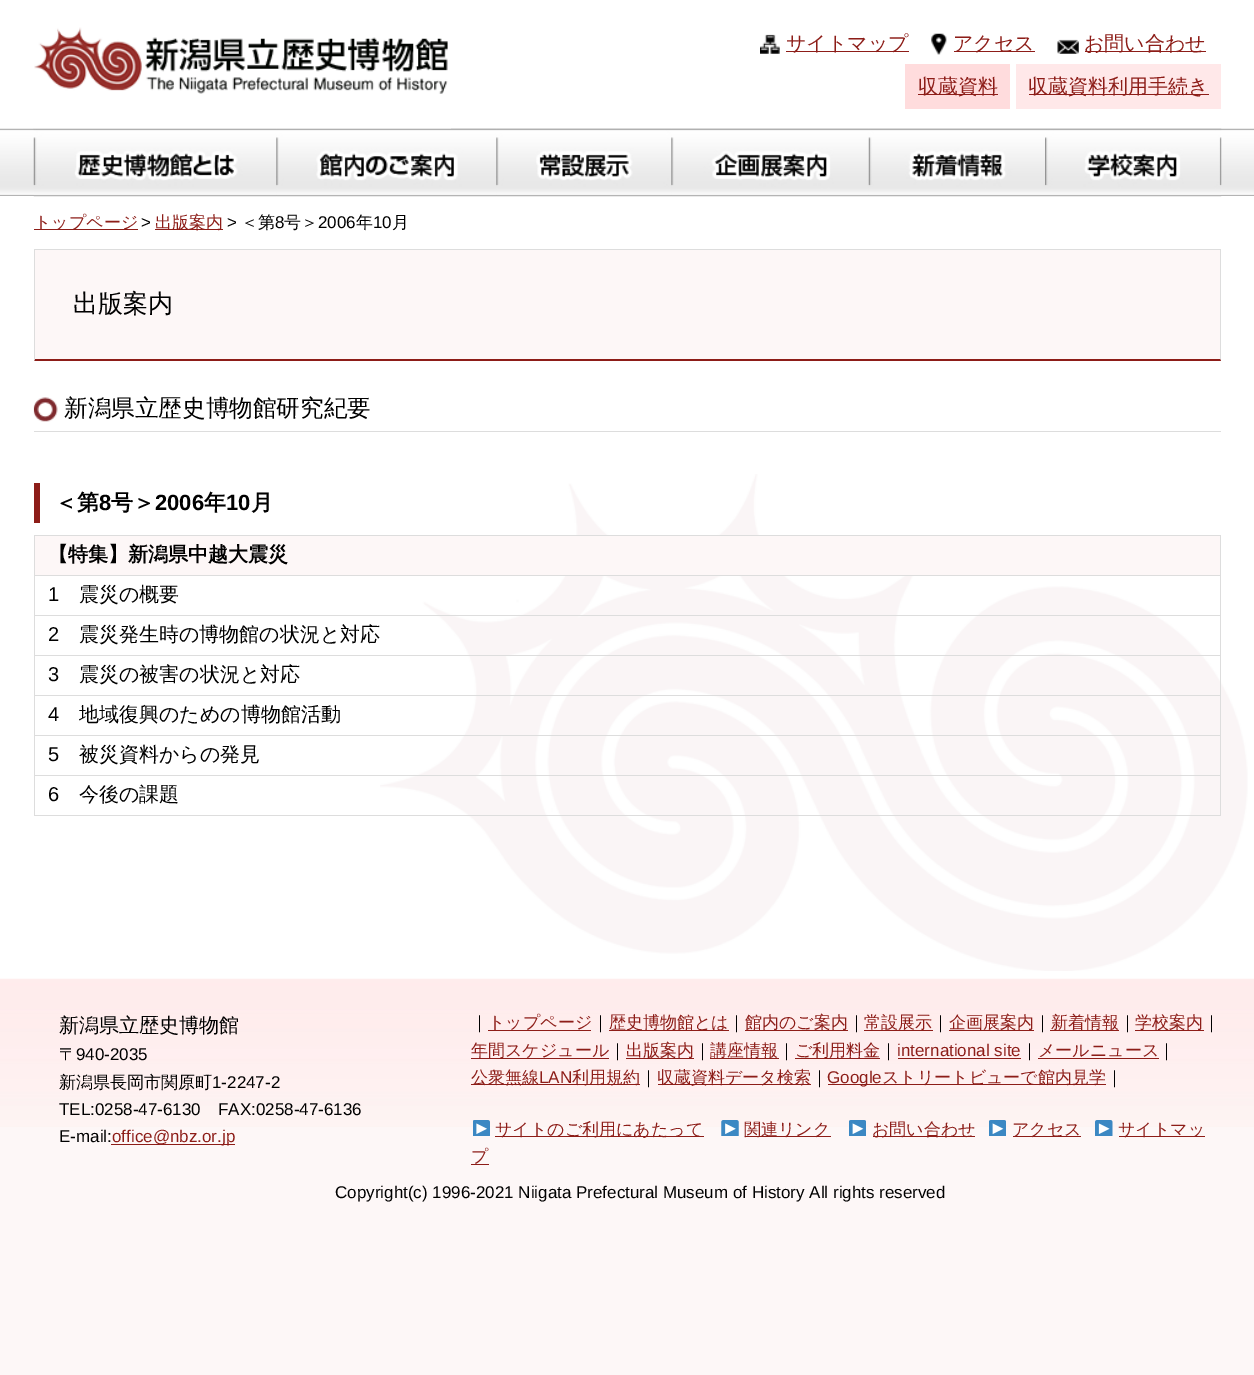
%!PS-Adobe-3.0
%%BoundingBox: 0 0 1254 1375
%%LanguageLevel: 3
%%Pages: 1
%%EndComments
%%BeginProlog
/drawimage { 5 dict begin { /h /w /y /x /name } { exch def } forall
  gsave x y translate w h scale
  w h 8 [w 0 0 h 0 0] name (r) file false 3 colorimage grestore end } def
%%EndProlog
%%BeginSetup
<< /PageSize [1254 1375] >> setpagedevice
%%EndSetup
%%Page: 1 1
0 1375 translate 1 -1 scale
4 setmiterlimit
0.992 0.969 0.969 setrgbcolor
0 0 1254 1375 rectfill
1 setgray
0 0 1254 129 rectfill
(images/5.raw) 0 128 1254 68 drawimage
(images/1.raw) 34 27 417 102 drawimage
(images/2.raw) 760 34 20 20 drawimage
0.553 0.114 0.094 setrgbcolor
786 51 123 1 rectfill
(images/3.raw) 931 33 16 22 drawimage
954 51 81 1 rectfill
(images/4.raw) 1057 39 22 15 drawimage
1085 51 121 1 rectfill
1 0.863 0.867 setrgbcolor
905 64 105 45 rectfill
0.553 0.114 0.094 setrgbcolor
918 94 80 1 rectfill
1 0.91 0.914 setrgbcolor
1016 64 205 45 rectfill
0.553 0.114 0.094 setrgbcolor
1029 94 180 1 rectfill
1 setgray
0 196 1254 783 rectfill
(images/6.raw) 33 128 244 69 drawimage
(images/7.raw) 276 128 221 69 drawimage
(images/8.raw) 496 128 176 69 drawimage
(images/9.raw) 671 128 198 69 drawimage
(images/10.raw) 868 128 177 69 drawimage
(images/11.raw) 1045 128 177 69 drawimage
(images/12.raw) 380 474 868 497 drawimage
0.553 0.114 0.094 setrgbcolor
34 229 104 1 rectfill
155 229 68 1 rectfill
0.992 0.969 0.969 setrgbcolor
35 250 1185 109 rectfill
0.867 setgray
34 249 1187 1 rectfill
newpath 1221 249 moveto 1221 361 lineto 1220 359 lineto 1220 250 lineto closepath fill
0.553 0.114 0.094 setrgbcolor
newpath 1221 361 moveto 34 361 lineto 35 359 lineto 1220 359 lineto closepath fill
0.867 setgray
newpath 34 361 moveto 34 249 lineto 35 250 lineto 35 359 lineto closepath fill
34 431 1187 1 rectfill
(images/13.raw) 33 397 25 25 drawimage
0.553 0.114 0.094 setrgbcolor
34 483 6 40 rectfill
0.867 setgray
34 535 1187 1 rectfill
34 535 1 281 rectfill
0.992 0.969 0.969 setrgbcolor
35 536 1185 39 rectfill
0.867 setgray
1220 536 1 280 rectfill
35 575 1186 1 rectfill
35 615 1186 1 rectfill
35 655 1186 1 rectfill
35 695 1186 1 rectfill
35 735 1186 1 rectfill
35 775 1186 1 rectfill
35 815 1186 1 rectfill
(images/14.raw) 0 978 1254 149 drawimage
0.553 0.114 0.094 setrgbcolor
111 1144 124 1 rectfill
488 1030 103 1 rectfill
609 1030 120 1 rectfill
745 1030 103 1 rectfill
864 1030 69 1 rectfill
949 1030 85 1 rectfill
1050 1030 69 1 rectfill
1135 1030 69 1 rectfill
471 1058 138 1 rectfill
626 1058 68 1 rectfill
710 1058 69 1 rectfill
795 1058 85 1 rectfill
898 1058 123 1 rectfill
1038 1058 121 1 rectfill
471 1084 169 1 rectfill
658 1084 153 1 rectfill
828 1084 278 1 rectfill
(images/15.raw) 473 1120 17 16 drawimage
495 1136 209 1 rectfill
(images/16.raw) 721 1120 18 16 drawimage
745 1136 86 1 rectfill
(images/17.raw) 849 1120 17 16 drawimage
873 1136 102 1 rectfill
(images/17.raw) 989 1120 17 16 drawimage
1013 1136 68 1 rectfill
(images/18.raw) 1095 1120 18 16 drawimage
1119 1136 86 1 rectfill
471 1164 18 1 rectfill
/WenQuanYiZenHei-Medium [20 0 0 -20 0 0] selectfont
786 50 moveto (サイトマップ) show
953 50 moveto (アクセス) show
1084 50 moveto (お問い合わせ) show
918 93 moveto (収蔵資料) show
1028 93 moveto (収蔵資料利用手続き) show
/WenQuanYiZenHei-Medium [17 0 0 -17 0 0] selectfont
34 228 moveto (トップページ) show
/LiberationSans-Regular [17 0 0 -17 0 0] selectfont
0 setgray
141 228 moveto (>) show
/WenQuanYiZenHei-Medium [17 0 0 -17 0 0] selectfont
0.553 0.114 0.094 setrgbcolor
155 228 moveto (出版案内) show
/LiberationSans-Regular [17 0 0 -17 0 0] selectfont
0 setgray
227 228 moveto (>) show
/WenQuanYiZenHei-Medium [17 0 0 -17 0 0] selectfont
241 228 moveto (＜第) show
/LiberationSans-Regular [17 0 0 -17 0 0] selectfont
275 228 moveto (8) show
/WenQuanYiZenHei-Medium [17 0 0 -17 0 0] selectfont
284 228 moveto (号＞) show
/LiberationSans-Regular [17 0 0 -17 0 0] selectfont
318 228 moveto (2006) show
/WenQuanYiZenHei-Medium [17 0 0 -17 0 0] selectfont
356 228 moveto (年) show
/LiberationSans-Regular [17 0 0 -17 0 0] selectfont
373 228 moveto (10) show
/WenQuanYiZenHei-Medium [17 0 0 -17 0 0] selectfont
392 228 moveto (月) show
/WenQuanYiZenHei-Medium [25 0 0 -25 0 0] selectfont
73 312 moveto (出版案内) show
/WenQuanYiZenHei-Medium [23.6 0 0 -23.6 0 0] selectfont
64 416 moveto (新潟県立歴史博物館研究紀要) show
/WenQuanYiZenHei-Bold [22 0 0 -22 0 0] selectfont
55 510 moveto (＜第) show
/LiberationSans-Bold [22 0 0 -22 0 0] selectfont
99 510 moveto (8) show
/WenQuanYiZenHei-Bold [22 0 0 -22 0 0] selectfont
111 510 moveto (号＞) show
/LiberationSans-Bold [22 0 0 -22 0 0] selectfont
155 510 moveto (2006) show
/WenQuanYiZenHei-Bold [22 0 0 -22 0 0] selectfont
204 510 moveto (年) show
/LiberationSans-Bold [22 0 0 -22 0 0] selectfont
226 510 moveto (10) show
/WenQuanYiZenHei-Bold [22 0 0 -22 0 0] selectfont
251 510 moveto (月) show
/WenQuanYiZenHei-Bold [20 0 0 -20 0 0] selectfont
48 561 moveto (【特集】新潟県中越大震災) show
/LiberationSans-Regular [20 0 0 -20 0 0] selectfont
48 601 moveto (1) show
/WenQuanYiZenHei-Medium [20 0 0 -20 0 0] selectfont
79 601 moveto (震災の概要) show
/LiberationSans-Regular [20 0 0 -20 0 0] selectfont
48 641 moveto (2) show
/WenQuanYiZenHei-Medium [20 0 0 -20 0 0] selectfont
79 641 moveto (震災発生時の博物館の状況と対応) show
/LiberationSans-Regular [20 0 0 -20 0 0] selectfont
48 681 moveto (3) show
/WenQuanYiZenHei-Medium [20 0 0 -20 0 0] selectfont
79 681 moveto (震災の被害の状況と対応) show
/LiberationSans-Regular [20 0 0 -20 0 0] selectfont
48 721 moveto (4) show
/WenQuanYiZenHei-Medium [20 0 0 -20 0 0] selectfont
79 721 moveto (地域復興のための博物館活動) show
/LiberationSans-Regular [20 0 0 -20 0 0] selectfont
48 761 moveto (5) show
/WenQuanYiZenHei-Medium [20 0 0 -20 0 0] selectfont
79 761 moveto (被災資料からの発見) show
/LiberationSans-Regular [20 0 0 -20 0 0] selectfont
48 801 moveto (6) show
/WenQuanYiZenHei-Medium [20 0 0 -20 0 0] selectfont
79 801 moveto (今後の課題) show
59 1032 moveto (新潟県立歴史博物館) show
/WenQuanYiZenHei-Medium [17 0 0 -17 0 0] selectfont
59 1060 moveto (〒) show
/LiberationSans-Regular [17 0 0 -17 0 0] selectfont
76 1060 moveto (940-2035) show
/WenQuanYiZenHei-Medium [17 0 0 -17 0 0] selectfont
59 1088 moveto (新潟県長岡市関原町) show
/LiberationSans-Regular [17 0 0 -17 0 0] selectfont
212 1088 moveto (1-2247-2) show
59 1115 moveto (TEL:0258-47-6130) show
218 1115 moveto (FAX:0258-47-6136) show
59 1142 moveto (E-mail:) show
0.553 0.114 0.094 setrgbcolor
112 1142 moveto (office@nbz.or.jp) show
/WenQuanYiZenHei-Medium [17 0 0 -17 0 0] selectfont
0 setgray
471 1028 moveto (｜) show
0.553 0.114 0.094 setrgbcolor
488 1028 moveto (トップページ) show
0 setgray
592 1028 moveto (｜) show
0.553 0.114 0.094 setrgbcolor
609 1028 moveto (歴史博物館とは) show
0 setgray
728 1028 moveto (｜) show
0.553 0.114 0.094 setrgbcolor
745 1028 moveto (館内のご案内) show
0 setgray
848 1028 moveto (｜) show
0.553 0.114 0.094 setrgbcolor
864 1028 moveto (常設展示) show
0 setgray
932 1028 moveto (｜) show
0.553 0.114 0.094 setrgbcolor
949 1028 moveto (企画展案内) show
0 setgray
1034 1028 moveto (｜) show
0.553 0.114 0.094 setrgbcolor
1051 1028 moveto (新着情報) show
0 setgray
1119 1028 moveto (｜) show
0.553 0.114 0.094 setrgbcolor
1135 1028 moveto (学校案内) show
0 setgray
1203 1028 moveto (｜) show
0.553 0.114 0.094 setrgbcolor
471 1056 moveto (年間スケジュール) show
0 setgray
609 1056 moveto (｜) show
0.553 0.114 0.094 setrgbcolor
626 1056 moveto (出版案内) show
0 setgray
694 1056 moveto (｜) show
0.553 0.114 0.094 setrgbcolor
710 1056 moveto (講座情報) show
0 setgray
778 1056 moveto (｜) show
0.553 0.114 0.094 setrgbcolor
795 1056 moveto (ご利用料金) show
0 setgray
880 1056 moveto (｜) show
/LiberationSans-Regular [17 0 0 -17 0 0] selectfont
0.553 0.114 0.094 setrgbcolor
897 1056 moveto (international site) show
/WenQuanYiZenHei-Medium [17 0 0 -17 0 0] selectfont
0 setgray
1021 1056 moveto (｜) show
0.553 0.114 0.094 setrgbcolor
1038 1056 moveto (メールニュース) show
0 setgray
1158 1056 moveto (｜) show
0.553 0.114 0.094 setrgbcolor
471 1083 moveto (公衆無線) show
/LiberationSans-Regular [17 0 0 -17 0 0] selectfont
539 1083 moveto (LAN) show
/WenQuanYiZenHei-Medium [17 0 0 -17 0 0] selectfont
572 1083 moveto (利用規約) show
0 setgray
640 1083 moveto (｜) show
0.553 0.114 0.094 setrgbcolor
657 1083 moveto (収蔵資料データ検索) show
0 setgray
811 1083 moveto (｜) show
/LiberationSans-Regular [17 0 0 -17 0 0] selectfont
0.553 0.114 0.094 setrgbcolor
827 1083 moveto (Google) show
/WenQuanYiZenHei-Medium [17 0 0 -17 0 0] selectfont
882 1083 moveto (ストリートビューで館内見学) show
0 setgray
1106 1083 moveto (｜) show
0.553 0.114 0.094 setrgbcolor
495 1135 moveto (サイトのご利用にあたって) show
744 1135 moveto (関連リンク) show
872 1135 moveto (お問い合わせ) show
1012 1135 moveto (アクセス) show
1118 1135 moveto (サイトマッ) show
471 1162 moveto (プ) show
/LiberationSans-Regular [17 0 0 -17 0 0] selectfont
0 setgray
335 1198 moveto (Copyright\(c\) 1996-2021 Niigata Prefectural Museum of History All rights reserved) show
showpage
%%EOF
